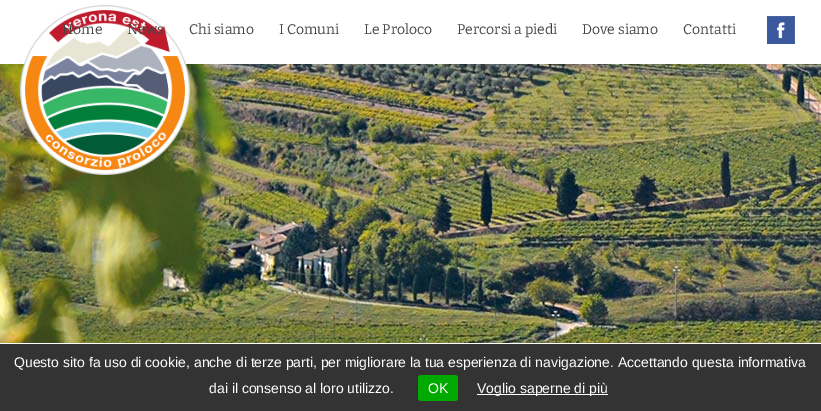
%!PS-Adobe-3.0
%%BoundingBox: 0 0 821 411
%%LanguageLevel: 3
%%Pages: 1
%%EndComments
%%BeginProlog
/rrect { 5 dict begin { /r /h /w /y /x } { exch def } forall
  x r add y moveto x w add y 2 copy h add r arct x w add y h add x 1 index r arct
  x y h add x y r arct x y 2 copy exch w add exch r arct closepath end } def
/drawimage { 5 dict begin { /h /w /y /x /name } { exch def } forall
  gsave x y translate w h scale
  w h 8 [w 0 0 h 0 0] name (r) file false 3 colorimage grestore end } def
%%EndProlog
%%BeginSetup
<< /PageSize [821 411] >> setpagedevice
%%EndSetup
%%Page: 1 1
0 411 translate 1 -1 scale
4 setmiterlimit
1 setgray
0 0 821 411 rectfill
(images/1.raw) 0 64 821 279 drawimage
(images/2.raw) 20 5 170 170 drawimage
(images/3.raw) 767 16 28 28 drawimage
0.2 setgray
0 344 821 67 rectfill
0 0.667 0 setrgbcolor
418 375 40 26 3 rrect fill
1 setgray
477 394 131 1 rectfill
/Bitter-Regular [14 0 0 -14 0 0] selectfont
0.267 setgray
62 34 moveto (Home) show
127 34 moveto (News) show
189 34 moveto (Chi siamo) show
279 34 moveto (I Comuni) show
364 34 moveto (Le Proloco) show
457 34 moveto (Percorsi a piedi) show
582 34 moveto (Dove siamo) show
683 34 moveto (Contatti) show
/LiberationSans-Regular [14 0 0 -14 0 0] selectfont
1 setgray
14 367 moveto (Questo sito fa uso di cookie, anche di terze parti, per migliorare la tua esperienza di navigazione. Accettando questa informativa) show
209 393 moveto (dai il consenso al loro utilizzo.) show
428 393 moveto (OK) show
477 393 moveto (Voglio saperne di più) show
showpage
%%EOF
